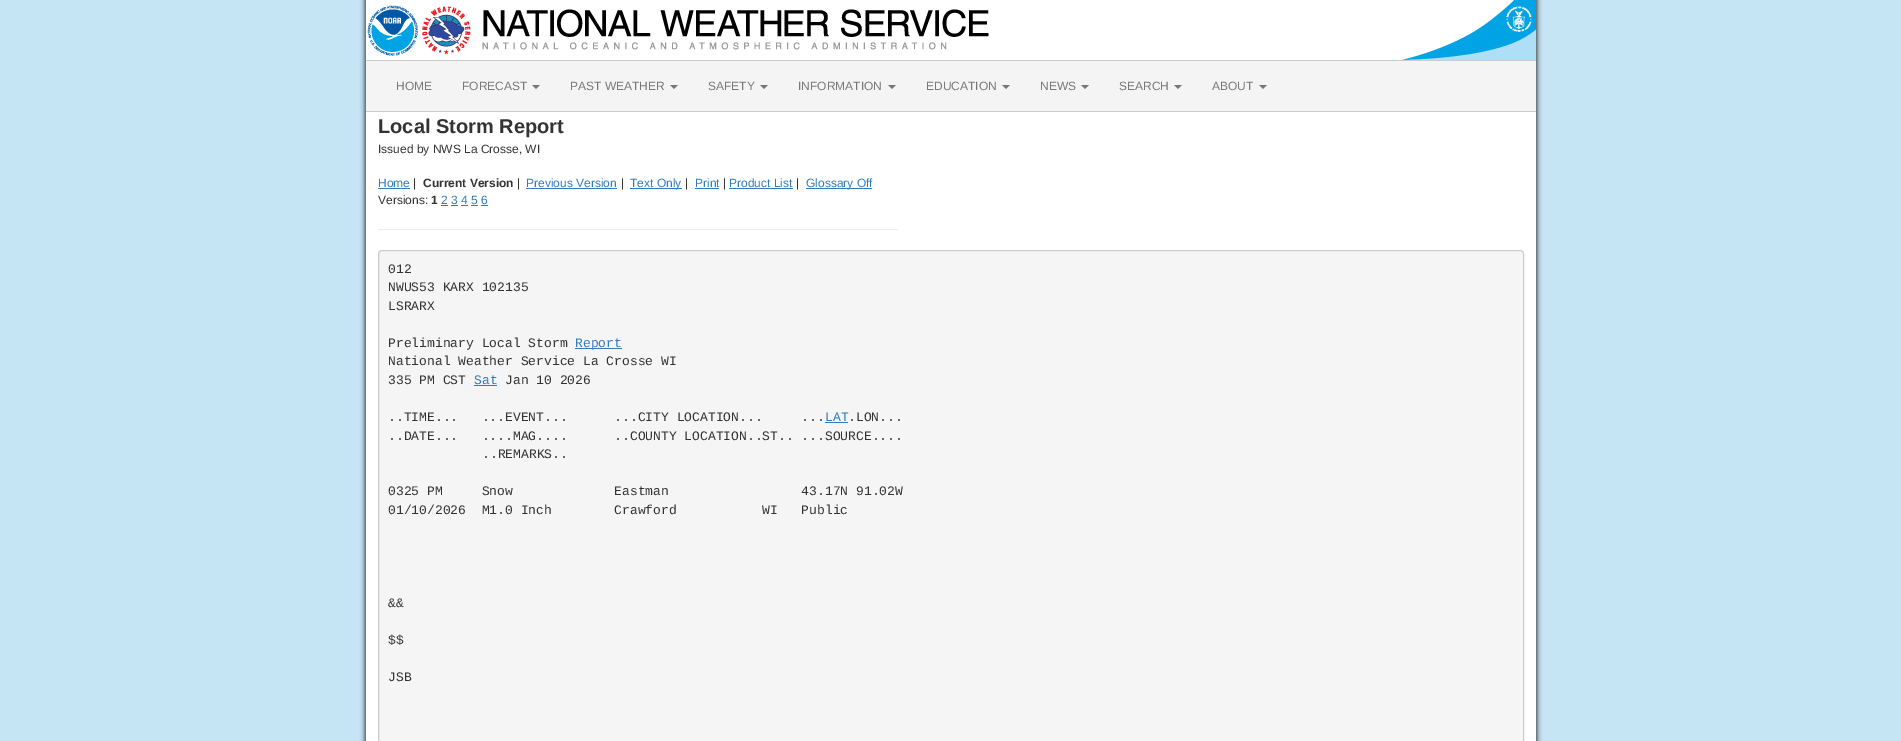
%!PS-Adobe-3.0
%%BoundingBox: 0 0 1901 741
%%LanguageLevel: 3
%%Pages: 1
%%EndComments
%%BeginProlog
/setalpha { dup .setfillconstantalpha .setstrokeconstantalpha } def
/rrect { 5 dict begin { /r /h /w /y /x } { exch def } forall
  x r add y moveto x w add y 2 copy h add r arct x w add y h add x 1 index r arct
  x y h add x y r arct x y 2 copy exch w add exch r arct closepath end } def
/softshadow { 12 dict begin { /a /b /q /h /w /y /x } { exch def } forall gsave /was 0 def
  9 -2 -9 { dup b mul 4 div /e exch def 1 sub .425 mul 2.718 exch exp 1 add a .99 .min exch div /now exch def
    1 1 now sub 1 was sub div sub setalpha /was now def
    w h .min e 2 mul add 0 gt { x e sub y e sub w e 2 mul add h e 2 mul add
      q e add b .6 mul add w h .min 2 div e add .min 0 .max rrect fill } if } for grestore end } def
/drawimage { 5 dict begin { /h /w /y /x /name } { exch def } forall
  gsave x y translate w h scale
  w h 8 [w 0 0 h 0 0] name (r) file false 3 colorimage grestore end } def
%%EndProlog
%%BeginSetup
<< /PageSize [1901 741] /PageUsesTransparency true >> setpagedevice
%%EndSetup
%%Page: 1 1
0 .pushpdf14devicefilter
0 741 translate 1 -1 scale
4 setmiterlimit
0.773 0.898 0.961 setrgbcolor
0 0 1901 741 rectfill
0.2 setgray
365 -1 1172 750 0 2.5 1 softshadow
1 setgray
366 0 1170 741 rectfill
(images/1.raw) 367 5 51 51 drawimage
(images/2.raw) 422 6 567 49 drawimage
(images/3.raw) 1401 0 135 60 drawimage
0.957 setgray
366 61 1170 50 rectfill
0.8 setgray
366 60 1170 1 rectfill
366 111 1170 1 rectfill
0.467 setgray
newpath 532 85 moveto 540 85 lineto 536 89 lineto closepath fill
newpath 670 85 moveto 678 85 lineto 674 89 lineto closepath fill
newpath 760 85 moveto 768 85 lineto 764 89 lineto closepath fill
newpath 888 85 moveto 896 85 lineto 892 89 lineto closepath fill
newpath 1002 85 moveto 1010 85 lineto 1006 89 lineto closepath fill
newpath 1081 85 moveto 1089 85 lineto 1085 89 lineto closepath fill
newpath 1174 85 moveto 1182 85 lineto 1178 89 lineto closepath fill
newpath 1259 85 moveto 1267 85 lineto 1263 89 lineto closepath fill
0.2 0.478 0.718 setrgbcolor
378 188 32 1 rectfill
526 188 91 1 rectfill
630 188 52 1 rectfill
695 188 24 1 rectfill
729 188 64 1 rectfill
806 188 66 1 rectfill
441 205 7 1 rectfill
451 205 7 1 rectfill
461 205 7 1 rectfill
471 205 7 1 rectfill
481 205 7 1 rectfill
0.933 setgray
378 229 520 1 rectfill
0.961 setgray
378.5 250.5 1145 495 3.5 rrect gsave fill grestore
0.8 setgray
stroke
0.2 0.478 0.718 setrgbcolor
575 348 47 1 rectfill
474 385 23 1 rectfill
825 422 23 1 rectfill
/LiberationSans-Regular [12 0 0 -12 0 0] selectfont
0.467 setgray
396 90 moveto (HOME) show
462 90 moveto (FORECAST) show
570 90 moveto (PAST WEATHER) show
708 90 moveto (SAFETY) show
798 90 moveto (INFORMATION) show
926 90 moveto (EDUCATION) show
1040 90 moveto (NEWS) show
1119 90 moveto (SEARCH) show
1212 90 moveto (ABOUT) show
/LiberationSans-Bold [20 0 0 -20 0 0] selectfont
0.2 setgray
378 133 moveto (Local Storm Report) show
/LiberationSans-Regular [12 0 0 -12 0 0] selectfont
378 153 moveto (Issued by NWS La Crosse, WI) show
0.2 0.478 0.718 setrgbcolor
378 187 moveto (Home) show
0.2 setgray
413 187 moveto (|) show
/LiberationSans-Bold [12 0 0 -12 0 0] selectfont
423 187 moveto (Current Version) show
/LiberationSans-Regular [12 0 0 -12 0 0] selectfont
517 187 moveto (|) show
0.2 0.478 0.718 setrgbcolor
526 187 moveto (Previous Version) show
0.2 setgray
621 187 moveto (|) show
0.2 0.478 0.718 setrgbcolor
630 187 moveto (Text Only) show
0.2 setgray
685 187 moveto (|) show
0.2 0.478 0.718 setrgbcolor
695 187 moveto (Print) show
0.2 setgray
723 187 moveto (|) show
0.2 0.478 0.718 setrgbcolor
729 187 moveto (Product List) show
0.2 setgray
796 187 moveto (|) show
0.2 0.478 0.718 setrgbcolor
806 187 moveto (Glossary Off) show
0.2 setgray
378 204 moveto (Versions:) show
/LiberationSans-Bold [12 0 0 -12 0 0] selectfont
431 204 moveto (1) show
/LiberationSans-Regular [12 0 0 -12 0 0] selectfont
0.2 0.478 0.718 setrgbcolor
441 204 moveto (2 3 4 5 6) show
/LiberationMono-Regular [13 0 0 -13 0 0] selectfont
0.2 setgray
388 273 moveto (012) show
388 291 moveto (NWUS53 KARX 102135) show
388 310 moveto (LSRARX) show
388 347 moveto (Preliminary Local Storm) show
0.2 0.478 0.718 setrgbcolor
575 347 moveto (Report) show
0.2 setgray
388 365 moveto (National Weather Service La Crosse WI) show
388 384 moveto (335 PM CST) show
0.2 0.478 0.718 setrgbcolor
474 384 moveto (Sat) show
0.2 setgray
505 384 moveto (Jan 10 2026) show
388 421 moveto (..TIME...   ...EVENT...      ...CITY LOCATION...     ...) show
0.2 0.478 0.718 setrgbcolor
825 421 moveto (LAT) show
0.2 setgray
848 421 moveto (.LON...) show
388 440 moveto (..DATE...   ....MAG....      ..COUNTY LOCATION..ST.. ...SOURCE....) show
482 458 moveto (..REMARKS..) show
388 495 moveto (0325 PM     Snow             Eastman                 43.17N 91.02W) show
388 514 moveto (01/10/2026  M1.0 Inch        Crawford           WI   Public) show
388 607 moveto (&&) show
388 644 moveto ($$) show
388 681 moveto (JSB) show
.poppdf14devicefilter showpage
%%EOF
